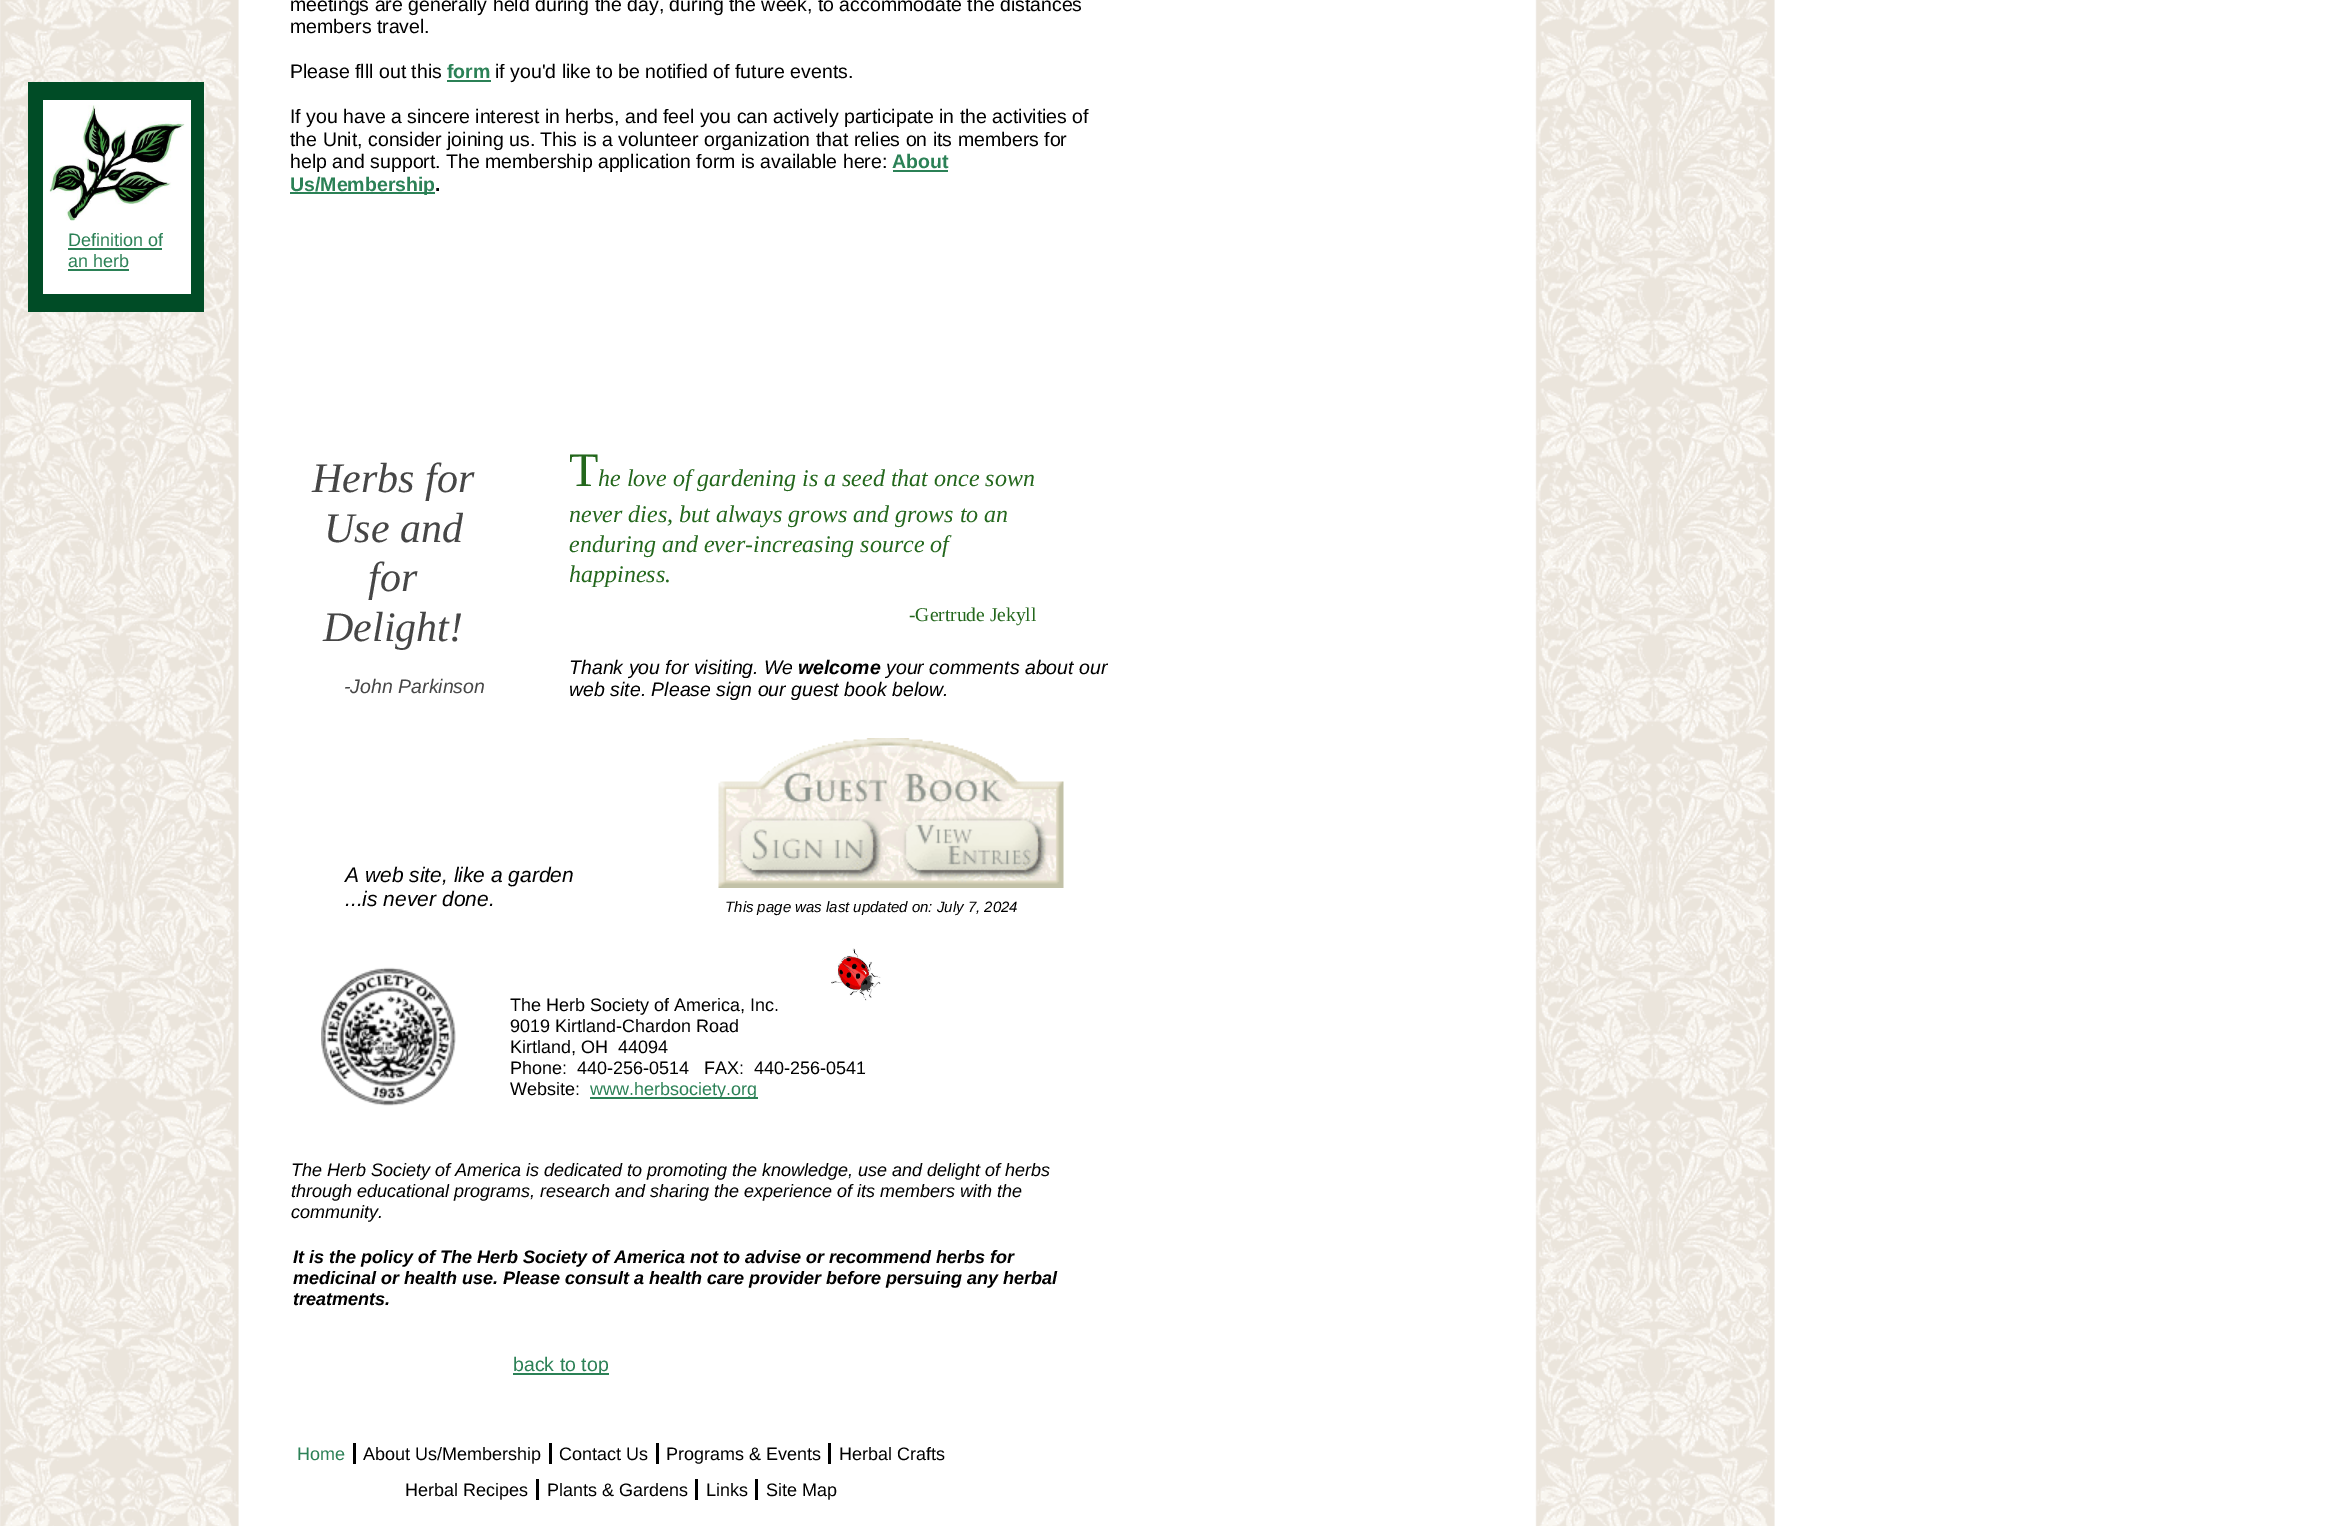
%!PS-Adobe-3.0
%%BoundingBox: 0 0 2331 1526
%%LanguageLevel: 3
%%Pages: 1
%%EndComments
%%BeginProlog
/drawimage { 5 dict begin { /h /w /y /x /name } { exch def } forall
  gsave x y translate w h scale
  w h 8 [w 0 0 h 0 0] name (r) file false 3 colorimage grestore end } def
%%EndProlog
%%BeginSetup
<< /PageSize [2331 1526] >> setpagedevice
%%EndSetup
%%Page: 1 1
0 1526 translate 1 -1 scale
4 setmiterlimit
1 setgray
0 0 2331 1526 rectfill
(images/1.raw) 0 0 1775 1526 drawimage
0 0.298 0.149 setrgbcolor
28 82 176 230 rectfill
0.169 0.506 0.337 setrgbcolor
447 80 44 2 rectfill
893 170 55 2 rectfill
290 192 145 2 rectfill
1 setgray
43 100 148 194 rectfill
(images/2.raw) 49 105 136 116 drawimage
0.169 0.506 0.337 setrgbcolor
68 248 94 2 rectfill
68 269 61 2 rectfill
(images/3.raw) 718 738 346 150 drawimage
(images/4.raw) 321 967 135 139 drawimage
(images/5.raw) 831 948 50 53 drawimage
590 1097 168 2 rectfill
513 1373 96 2 rectfill
0 setgray
353 1443 3 21 rectfill
549 1443 3 21 rectfill
656 1443 3 21 rectfill
828 1443 3 21 rectfill
536 1479 3 21 rectfill
695 1479 3 21 rectfill
755 1479 3 21 rectfill
/LiberationSans-Regular [19.5 0 0 -19.5 0 0] selectfont
290 11 moveto (meetings are generally held during the day, during the week, to accommodate the distances) show
290 33 moveto (members travel.) show
290 78 moveto (Please flll out this) show
/LiberationSans-Bold [19.5 0 0 -19.5 0 0] selectfont
0.169 0.506 0.337 setrgbcolor
447 78 moveto (form) show
/LiberationSans-Regular [19.5 0 0 -19.5 0 0] selectfont
0 setgray
495 78 moveto (if you'd like to be notified of future events.) show
290 123 moveto (If you have a sincere interest in herbs, and feel you can actively participate in the activities of) show
290 146 moveto (the Unit, consider joining us. This is a volunteer organization that relies on its members for) show
290 168 moveto (help and support. The membership application form is available here:) show
/LiberationSans-Bold [19.5 0 0 -19.5 0 0] selectfont
0.169 0.506 0.337 setrgbcolor
892 168 moveto (About) show
290 191 moveto (Us/Membership) show
0 setgray
435 191 moveto (.) show
/LiberationSans-Regular [18 0 0 -18 0 0] selectfont
0.169 0.506 0.337 setrgbcolor
68 246 moveto (Definition of) show
68 267 moveto (an herb) show
/LiberationSerif-Italic [42 0 0 -42 0 0] selectfont
0.275 setgray
312 492 moveto (Herbs for) show
324 542 moveto (Use and) show
368 591 moveto (for) show
323 641 moveto (Delight!) show
/LiberationSans-Italic [19.5 0 0 -19.5 0 0] selectfont
344 693 moveto (-John Parkinson) show
/LiberationSerif-Regular [48 0 0 -48 0 0] selectfont
0.137 0.404 0.11 setrgbcolor
569 486 moveto (T) show
/LiberationSerif-Italic [24 0 0 -24 0 0] selectfont
598 486 moveto (he love of gardening is a seed that once sown) show
569 522 moveto (never dies, but always grows and grows to an) show
569 552 moveto (enduring and ever-increasing source of) show
569 582 moveto (happiness.) show
/LiberationSerif-Regular [19.5 0 0 -19.5 0 0] selectfont
909 621 moveto (-Gertrude Jekyll) show
/LiberationSans-Italic [19.5 0 0 -19.5 0 0] selectfont
0 setgray
569 674 moveto (Thank you for visiting. We) show
/LiberationSans-BoldItalic [19.5 0 0 -19.5 0 0] selectfont
798 674 moveto (welcome) show
/LiberationSans-Italic [19.5 0 0 -19.5 0 0] selectfont
886 674 moveto (your comments about our) show
569 696 moveto (web site. Please sign our guest book below.) show
/LiberationSans-Italic [21 0 0 -21 0 0] selectfont
345 882 moveto (A web site, like a garden) show
345 906 moveto (...is never done.) show
/LiberationSans-Italic [15 0 0 -15 0 0] selectfont
725 912 moveto (This page was last updated on: July 7, 2024) show
/LiberationSans-Regular [18 0 0 -18 0 0] selectfont
510 1011 moveto (The Herb Society of America, Inc.) show
510 1032 moveto (9019 Kirtland-Chardon Road) show
510 1053 moveto (Kirtland, OH  44094) show
510 1074 moveto (Phone:  440-256-0514   FAX:  440-256-0541) show
510 1095 moveto (Website:) show
0.169 0.506 0.337 setrgbcolor
590 1095 moveto (www.herbsociety.org) show
/LiberationSans-Italic [18 0 0 -18 0 0] selectfont
0 setgray
291 1176 moveto (The Herb Society of America is dedicated to promoting the knowledge, use and delight of herbs) show
291 1197 moveto (through educational programs, research and sharing the experience of its members with the) show
291 1218 moveto (community.) show
/LiberationSans-BoldItalic [18 0 0 -18 0 0] selectfont
293 1263 moveto (It is the policy of The Herb Society of America not to advise or recommend herbs for) show
293 1284 moveto (medicinal or health use. Please consult a health care provider before persuing any herbal) show
293 1305 moveto (treatments.) show
/LiberationSans-Regular [19.5 0 0 -19.5 0 0] selectfont
0.169 0.506 0.337 setrgbcolor
513 1371 moveto (back to top) show
/LiberationSans-Regular [18 0 0 -18 0 0] selectfont
297 1460 moveto (Home) show
0 setgray
363 1460 moveto (About Us/Membership) show
559 1460 moveto (Contact Us) show
666 1460 moveto (Programs & Events) show
839 1460 moveto (Herbal Crafts) show
405 1496 moveto (Herbal Recipes) show
547 1496 moveto (Plants & Gardens) show
706 1496 moveto (Links) show
766 1496 moveto (Site Map) show
showpage
%%EOF
